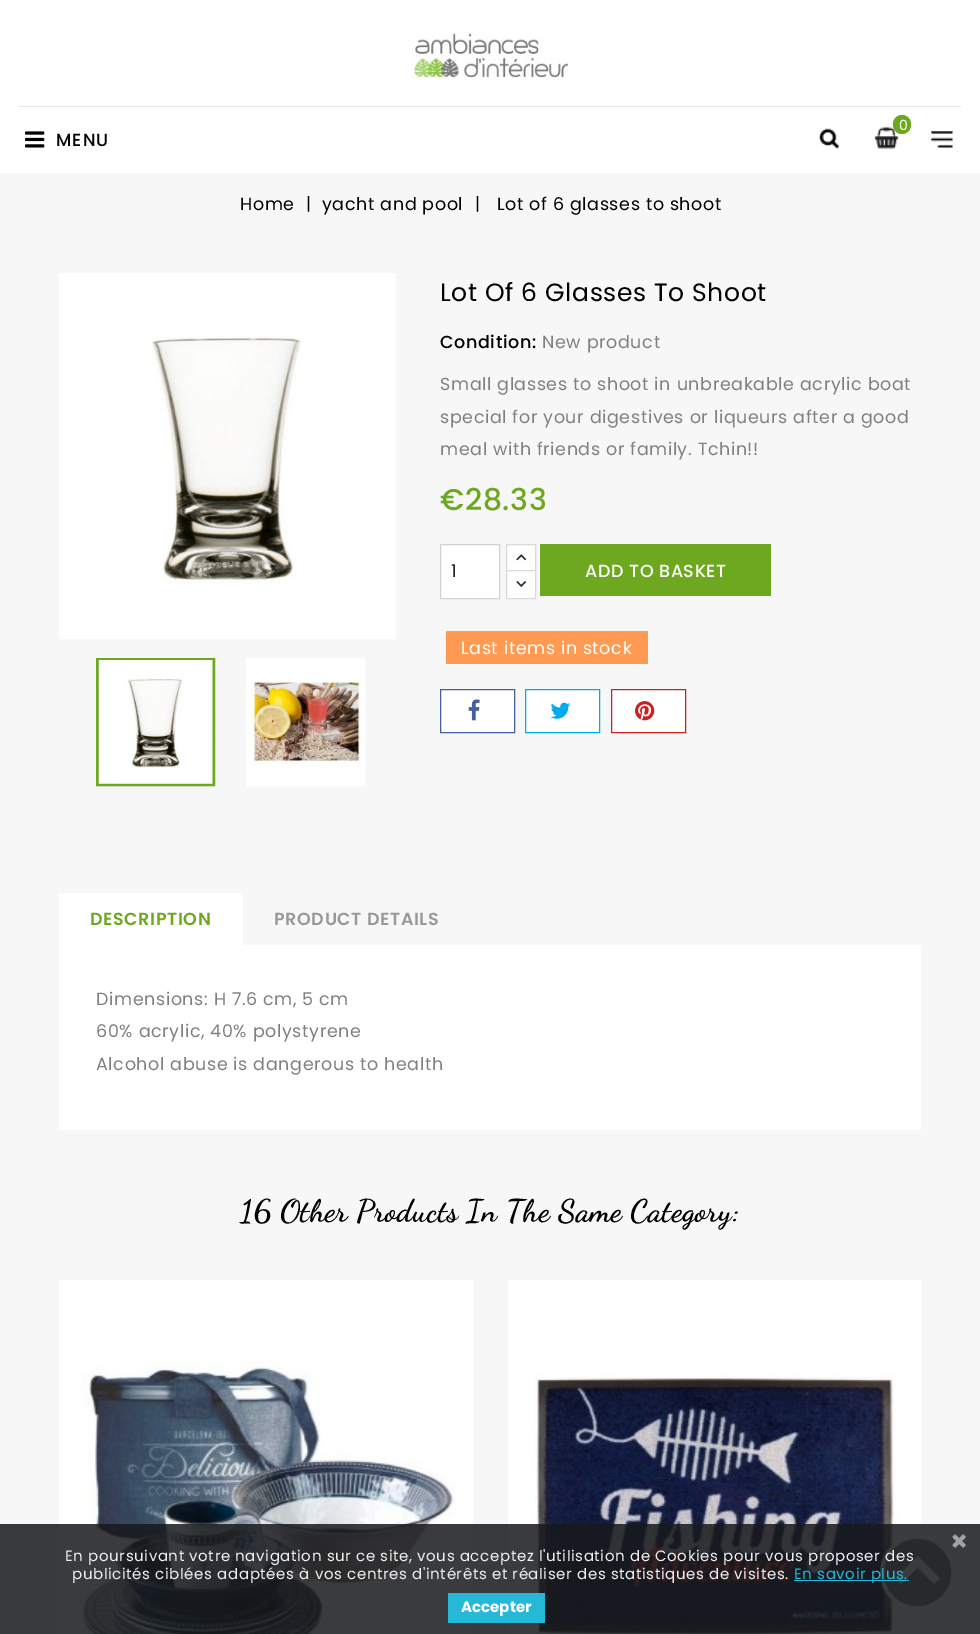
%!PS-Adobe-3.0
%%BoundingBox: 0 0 980 1634
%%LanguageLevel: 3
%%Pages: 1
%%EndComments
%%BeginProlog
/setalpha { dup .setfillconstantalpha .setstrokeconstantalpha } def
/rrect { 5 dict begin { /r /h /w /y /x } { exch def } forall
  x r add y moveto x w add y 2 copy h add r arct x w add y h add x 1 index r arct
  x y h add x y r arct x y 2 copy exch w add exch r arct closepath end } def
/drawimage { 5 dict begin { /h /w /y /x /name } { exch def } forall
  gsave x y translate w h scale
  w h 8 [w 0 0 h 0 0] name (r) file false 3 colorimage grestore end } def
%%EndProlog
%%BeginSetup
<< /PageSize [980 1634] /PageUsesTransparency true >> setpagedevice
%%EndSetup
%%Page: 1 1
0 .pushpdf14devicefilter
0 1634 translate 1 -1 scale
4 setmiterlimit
0.969 setgray
0 0 980 1634 rectfill
1 setgray
0 0 980 173 rectfill
0.902 setgray
19 106 942 1 rectfill
(images/1.raw) 411 32 158 49 drawimage
(images/2.raw) 874 127 25 22 drawimage
0.431 0.659 0.125 setrgbcolor
893 115 18 19 9 rrect fill
(images/3.raw) 25 131 20 17 drawimage
(images/4.raw) 818 128 21 21 drawimage
(images/5.raw) 931 131 22 17 drawimage
1 setgray
13 setlinewidth
65.5 279.5 324 353 rectstroke
72 286 311 340 rectfill
(images/6.raw) 151 336 151 249 drawimage
0.431 0.659 0.125 setrgbcolor
3 setlinewidth
97.5 659.5 116 125 rectstroke
(images/7.raw) 98 660 115 124 drawimage
1 setgray
247.5 659.5 116 125 rectstroke
(images/8.raw) 249 661 113 122 drawimage
newpath 440.5 544.5 moveto 499.5 544.5 lineto 499.5 598.5 lineto 440.5 598.5 lineto closepath gsave fill grestore
0.824 setgray
1 setlinewidth
stroke
1 setgray
507 545 28 25 rectfill
0.851 setgray
506.5 544.5 29 28 rectstroke
(images/9.raw) 516 554 11 7 drawimage
1 setgray
newpath 506.5 570.5 moveto 535.5 570.5 lineto 535.5 598.5 lineto 506.5 598.5 lineto closepath gsave fill grestore
0.851 setgray
stroke
(images/10.raw) 516 581 11 6 drawimage
0.431 0.659 0.125 setrgbcolor
540 544 231 52 rectfill
1 0.604 0.322 setrgbcolor
446 631 202 33 rectfill
1 setgray
newpath 440.5 689.5 moveto 514.5 689.5 lineto 514.5 732.5 lineto 440.5 732.5 lineto closepath gsave fill grestore
0.263 0.373 0.624 setrgbcolor
stroke
(images/11.raw) 468 699 12 22 drawimage
1 setgray
newpath 525.5 689.5 moveto 599.5 689.5 lineto 599.5 732.5 lineto 525.5 732.5 lineto closepath gsave fill grestore
0 0.667 0.941 setrgbcolor
stroke
(images/12.raw) 550 702 21 17 drawimage
1 setgray
newpath 611.5 689.5 moveto 685.5 689.5 lineto 685.5 732.5 lineto 611.5 732.5 lineto closepath gsave fill grestore
0.808 0.122 0.129 setrgbcolor
stroke
(images/13.raw) 635 701 20 20 drawimage
1 setgray
59 893 184 52 rectfill
59 945 862 185 rectfill
13 setlinewidth
65.5 1286.5 401 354 rectstroke
72 1293 388 341 rectfill
(images/14.raw) 81 1361 374 273 drawimage
514.5 1286.5 400 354 rectstroke
521 1293 387 341 rectfill
(images/15.raw) 534 1372 367 262 drawimage
(images/16.raw) 880 1535 75 75 drawimage
0.85 setalpha
0.09 0.098 0.11 setrgbcolor
0 1524 980 110 rectfill
1 setalpha
(images/17.raw) 952 1534 14 14 drawimage
0.145 0.725 0.843 setrgbcolor
794 1580 115 1 rectfill
448 1593 97 30 rectfill
/Poppins-Regular [14 0 0 -14 0 0] selectfont
1 setgray
899 130 moveto 0.62 0 (0) ashow
/Poppins-Medium [17.5 0 0 -17.5 0 0] selectfont
0 setgray
56 146 moveto 1 0 (MENU) ashow
/Poppins-Regular [17.5 0 0 -17.5 0 0] selectfont
240 210 moveto 0.62 0 (Home) ashow
306 210 moveto 0.62 0 (|) ashow
322 210 moveto 0.62 0 (yacht and pool) ashow
475 210 moveto 0.62 0 (|) ashow
497 210 moveto 0.62 0 (Lot of 6 glasses to shoot) ashow
/Poppins-Regular [25 0 0 -25 0 0] selectfont
440 301 moveto 0.62 0 (Lot Of 6 Glasses To Shoot) ashow
/Poppins-Medium [17.5 0 0 -17.5 0 0] selectfont
440 348 moveto 0.62 0 (Condition:) ashow
/Poppins-Regular [17.5 0 0 -17.5 0 0] selectfont
0.502 setgray
542 348 moveto 0.62 0 (New product) ashow
440 390 moveto 0.62 0 (Small glasses to shoot in unbreakable acrylic boat) ashow
440 423 moveto 0.62 0 (special for your digestives or liqueurs after a good) ashow
440 455 moveto 0.62 0 (meal with friends or family. Tchin!!) ashow
/Poppins-Medium [30 0 0 -30 0 0] selectfont
0.431 0.659 0.125 setrgbcolor
440 510 moveto 0.62 0 (€28.33) ashow
/Poppins-Regular [17.5 0 0 -17.5 0 0] selectfont
0.149 setgray
451 577 moveto (1) show
/Poppins-Medium [17.5 0 0 -17.5 0 0] selectfont
1 setgray
585 577 moveto 0.62 0 (ADD TO BASKET) ashow
/Poppins-Regular [17.5 0 0 -17.5 0 0] selectfont
461 654 moveto 0.62 0 (Last items in stock) ashow
/Poppins-SemiBold [17.5 0 0 -17.5 0 0] selectfont
0.431 0.659 0.125 setrgbcolor
90 925 moveto 0.62 0 (DESCRIPTION) ashow
0.6 setgray
274 925 moveto 0.62 0 (PRODUCT DETAILS) ashow
/Poppins-Regular [17.5 0 0 -17.5 0 0] selectfont
0.502 setgray
96 1005 moveto 0.62 0 (Dimensions: H 7.6 cm, 5 cm) ashow
96 1037 moveto 0.62 0 (60% acrylic, 40% polystyrene) ashow
96 1070 moveto 0.62 0 (Alcohol abuse is dangerous to health) ashow
/DancingScript-Bold [31.25 0 0 -31.25 0 0] selectfont
0 setgray
240 1221 moveto 0.25 0 (16 Other Products In The Same Category:) ashow
/Poppins-Regular [15 0 0 -15 0 0] selectfont
0.937 setgray
65 1561 moveto 0.62 0 (En poursuivant votre navigation sur ce site, vous acceptez l'utilisation de Cookies pour vous proposer des) ashow
72 1579 moveto 0.62 0 (publicités ciblées adaptées à vos centres d'intérêts et réaliser des statistiques de visites.) ashow
0.145 0.725 0.843 setrgbcolor
794 1579 moveto 0.62 0 (En savoir plus.) ashow
/Poppins-Bold [15 0 0 -15 0 0] selectfont
1 setgray
461 1612 moveto (Accepter) show
.poppdf14devicefilter showpage
%%EOF
